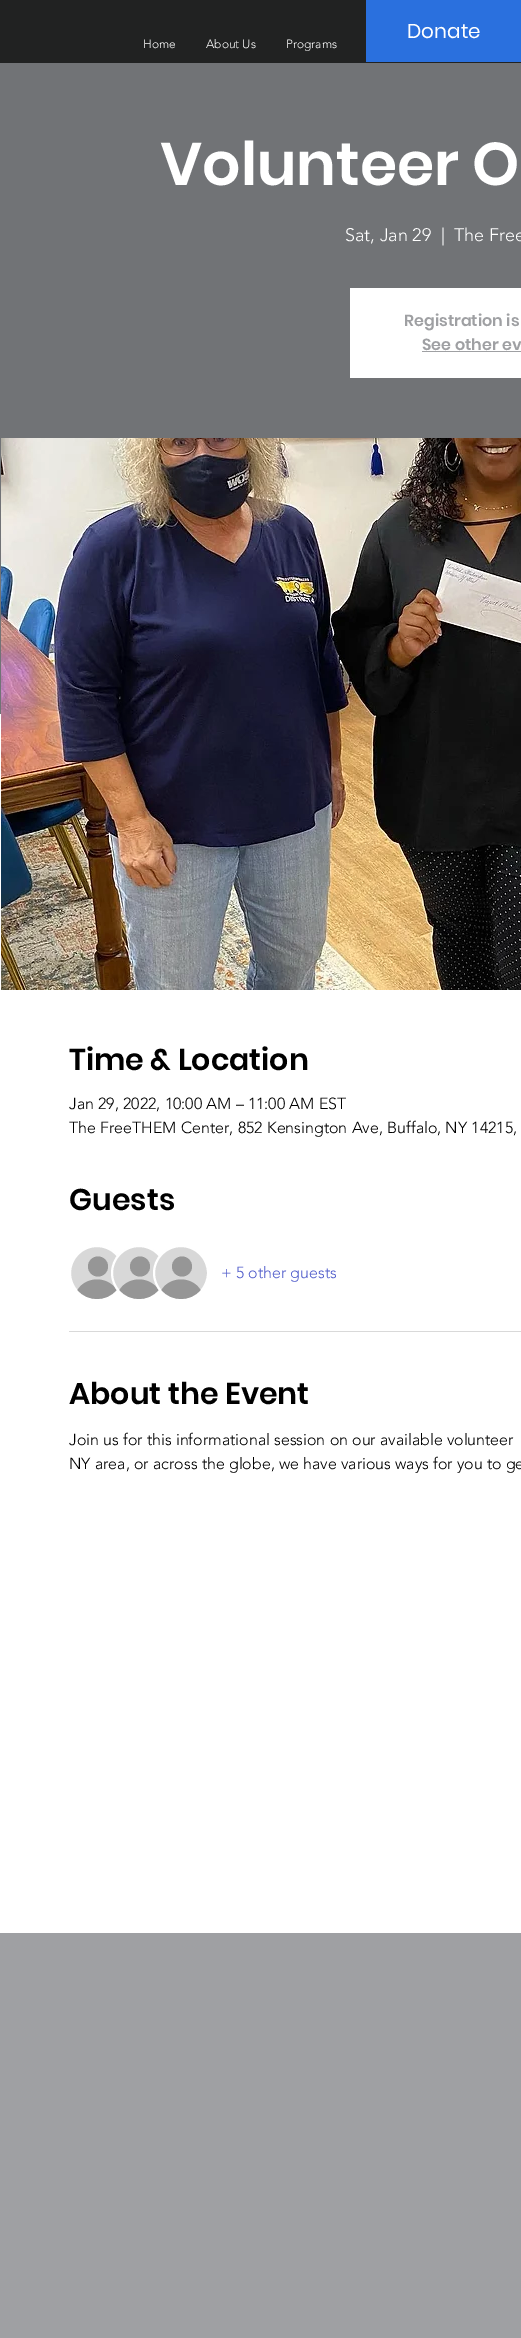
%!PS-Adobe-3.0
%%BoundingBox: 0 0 521 2338
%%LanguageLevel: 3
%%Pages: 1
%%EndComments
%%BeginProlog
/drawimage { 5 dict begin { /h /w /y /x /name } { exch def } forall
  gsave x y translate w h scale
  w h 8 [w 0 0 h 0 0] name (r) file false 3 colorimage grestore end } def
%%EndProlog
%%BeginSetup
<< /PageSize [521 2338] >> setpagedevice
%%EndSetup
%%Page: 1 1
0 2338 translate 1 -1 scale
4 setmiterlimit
0.624 0.627 0.639 setrgbcolor
0 0 521 2338 rectfill
0.129 0.133 0.133 setrgbcolor
0 0 521 63 rectfill
0.165 0.439 0.871 setrgbcolor
366 0 155 62 rectfill
0.443 0.451 0.463 setrgbcolor
0 63 521 651 rectfill
1 setgray
350 288 171 90 rectfill
0.624 0.627 0.639 setrgbcolor
422 351 99 1 rectfill
1 setgray
0 714 521 1219 rectfill
(images/1.raw) 1 438 520 552 drawimage
0.847 setgray
newpath 97 1273 27 0 360 arc closepath gsave fill grestore
1 setgray
2 setlinewidth
stroke
0.588 setgray
newpath 98 1266.5 10 0 360 arc closepath fill
newpath 116.5 1290 moveto 106.5 1302 87.5 1302 77.5 1290 curveto 86 1276 108 1276 116.5 1290 curveto closepath fill
0.847 setgray
newpath 139 1273 27 0 360 arc closepath gsave fill grestore
1 setgray
stroke
0.588 setgray
newpath 140 1266.5 10 0 360 arc closepath fill
newpath 158.5 1290 moveto 148.5 1302 129.5 1302 119.5 1290 curveto 128 1276 150 1276 158.5 1290 curveto closepath fill
0.847 setgray
newpath 181 1273 27 0 360 arc closepath gsave fill grestore
1 setgray
stroke
0.588 setgray
newpath 182 1266.5 10 0 360 arc closepath fill
newpath 200.5 1290 moveto 190.5 1302 171.5 1302 161.5 1290 curveto 170 1276 192 1276 200.5 1290 curveto closepath fill
0.851 setgray
69 1331 452 1 rectfill
/Poppins-Regular [20 0 0 -20 0 0] selectfont
1 setgray
407 38 moveto (Donate) show
/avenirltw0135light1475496-Light [12 0 0 -12 0 0] selectfont
143 48 moveto (Home) show
206 48 moveto (About Us) show
286 48 moveto (Programs) show
/Poppins-SemiBold [60 0 0 -60 0 0] selectfont
160 185 moveto (Volunteer O) show
/avenirltw0135light1475496-Light [18 0 0 -18 0 0] selectfont
345 241 moveto (Sat, Jan 29) show
441 241 moveto (|) show
454 241 moveto (The Free) show
/Poppins-SemiBold [16 0 0 -16 0 0] selectfont
0.624 0.627 0.639 setrgbcolor
404 326 moveto (Registration is) show
422 350 moveto (See other ev) show
/Poppins-SemiBold [30 0 0 -30 0 0] selectfont
0 setgray
69 1070 moveto (Time & Location) show
/avenirltw0135light1475496-Light [16 0 0 -16 0 0] selectfont
69 1109 moveto (Jan 29, 2022, 10:00 AM – 11:00 AM EST) show
69 1133 moveto (The FreeTHEM Center, 852 Kensington Ave, Buffalo, NY 14215,) show
/Poppins-SemiBold [30 0 0 -30 0 0] selectfont
69 1210 moveto (Guests) show
/avenirltw0135light1475496-Light [16 0 0 -16 0 0] selectfont
0.322 0.369 0.8 setrgbcolor
221 1278 moveto (+ 5 other guests) show
/Poppins-SemiBold [30 0 0 -30 0 0] selectfont
0 setgray
69 1404 moveto (About the Event) show
/avenirltw0135light1475496-Light [16 0 0 -16 0 0] selectfont
69 1445 moveto (Join us for this informational session on our available volunteer) show
69 1469 moveto (NY area, or across the globe, we have various ways for you to ge) show
showpage
%%EOF
